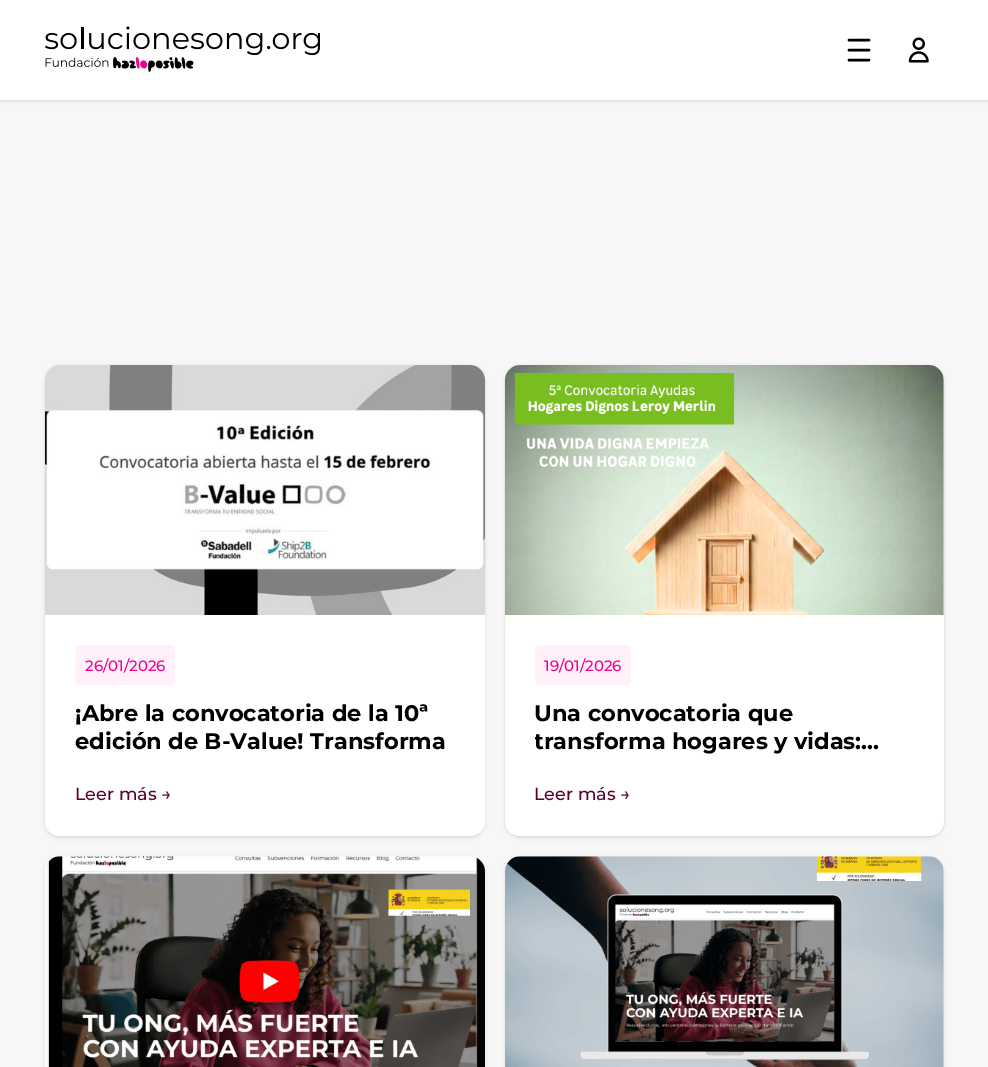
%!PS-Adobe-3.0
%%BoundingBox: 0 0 988 1067
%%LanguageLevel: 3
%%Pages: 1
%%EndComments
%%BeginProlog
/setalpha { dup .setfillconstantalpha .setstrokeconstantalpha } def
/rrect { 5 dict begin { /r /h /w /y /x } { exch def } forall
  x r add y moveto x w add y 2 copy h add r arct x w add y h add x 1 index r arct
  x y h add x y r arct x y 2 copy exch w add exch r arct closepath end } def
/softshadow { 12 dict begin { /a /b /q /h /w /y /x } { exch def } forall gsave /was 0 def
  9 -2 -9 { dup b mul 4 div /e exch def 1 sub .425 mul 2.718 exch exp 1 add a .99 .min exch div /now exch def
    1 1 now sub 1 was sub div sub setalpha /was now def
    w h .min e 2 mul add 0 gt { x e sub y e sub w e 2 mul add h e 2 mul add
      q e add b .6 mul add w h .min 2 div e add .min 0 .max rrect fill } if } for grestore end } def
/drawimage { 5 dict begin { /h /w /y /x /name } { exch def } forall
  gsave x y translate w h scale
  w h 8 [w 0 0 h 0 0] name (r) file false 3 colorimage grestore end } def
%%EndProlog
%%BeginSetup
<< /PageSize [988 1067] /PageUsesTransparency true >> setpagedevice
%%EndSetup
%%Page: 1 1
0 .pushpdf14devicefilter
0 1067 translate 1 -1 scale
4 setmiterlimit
0.973 0.969 0.973 setrgbcolor
0 0 988 1067 rectfill
0 setgray
1 3 987 97 0 1 0.1 softshadow
0 1 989 100 0 2 0.1 softshadow
1 setgray
0 0 988 100 rectfill
(images/1.raw) 45 26 275 46 drawimage
0 setgray
2.5 setlinewidth
1 setlinecap
1 setlinejoin
newpath 849 60 moveto 869 60 lineto 849 50 moveto 869 50 lineto 849 40 moveto 869 40 lineto stroke
(images/2.raw) 908 37 21 26 drawimage
46 368 438 468 14 1 0.1 softshadow
45 366 440 472 15 2 0.1 softshadow
(images/3.raw) 45 365 440 250 drawimage
1 setgray
newpath 45 615 moveto 485 615 lineto 485 821 lineto 485 829.5 478.5 836 470 836 curveto 60 836 lineto 51.5 836 45 829.5 45 821 curveto closepath fill
1 0.941 0.98 setrgbcolor
75 645 100 40 5 rrect fill
0 setgray
506 368 437 468 14 1 0.1 softshadow
505 366 439 472 15 2 0.1 softshadow
0.953 0.957 0.965 setrgbcolor
newpath 520 365 moveto 929 365 lineto 937.5 365 944 371.5 944 380 curveto 944 615 lineto 505 615 lineto 505 380 lineto 505 371.5 511.5 365 520 365 curveto closepath fill
(images/4.raw) 505 365 439 250 drawimage
1 setgray
newpath 505 615 moveto 944 615 lineto 944 821 lineto 944 829.5 937.5 836 929 836 curveto 520 836 lineto 511.5 836 505 829.5 505 821 curveto closepath fill
1 0.941 0.98 setrgbcolor
535 645 96 40 5 rrect fill
0 setgray
45 858 440 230 15 2 0.1 softshadow
0.953 0.957 0.965 setrgbcolor
newpath 60 856 moveto 470 856 lineto 478.5 856 485 862.5 485 871 curveto 485 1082 lineto 45 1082 lineto 45 871 lineto 45 862.5 51.5 856 60 856 curveto closepath fill
(images/5.raw) 45 856 440 211 drawimage
0 setgray
505 858 439 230 15 2 0.1 softshadow
0.953 0.957 0.965 setrgbcolor
newpath 520 856 moveto 929 856 lineto 937.5 856 944 862.5 944 871 curveto 944 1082 lineto 505 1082 lineto 505 871 lineto 505 862.5 511.5 856 520 856 curveto closepath fill
(images/6.raw) 505 856 439 211 drawimage
/Montserrat-Medium [15 0 0 -15 0 0] selectfont
0.925 0 0.549 setrgbcolor
85 671 moveto (26/01/2026) show
/Montserrat-Bold [22.5 0 0 -22.5 0 0] selectfont
0 setgray
75 721 moveto (¡Abre la convocatoria de la 10ª) show
75 749 moveto (edición de B-Value! Transforma) show
/Montserrat-Medium [17.5 0 0 -17.5 0 0] selectfont
0.373 0 0.184 setrgbcolor
75 800 moveto (Leer más →) show
/Montserrat-Medium [15 0 0 -15 0 0] selectfont
0.925 0 0.549 setrgbcolor
544 671 moveto (19/01/2026) show
/Montserrat-Bold [22.5 0 0 -22.5 0 0] selectfont
0 setgray
534 721 moveto (Una convocatoria que) show
gsave
535 700 379 56 rectclip
534 749 moveto (transforma hogares y vidas:…) show
grestore
/Montserrat-Medium [17.5 0 0 -17.5 0 0] selectfont
0.373 0 0.184 setrgbcolor
534 800 moveto (Leer más →) show
.poppdf14devicefilter showpage
%%EOF
